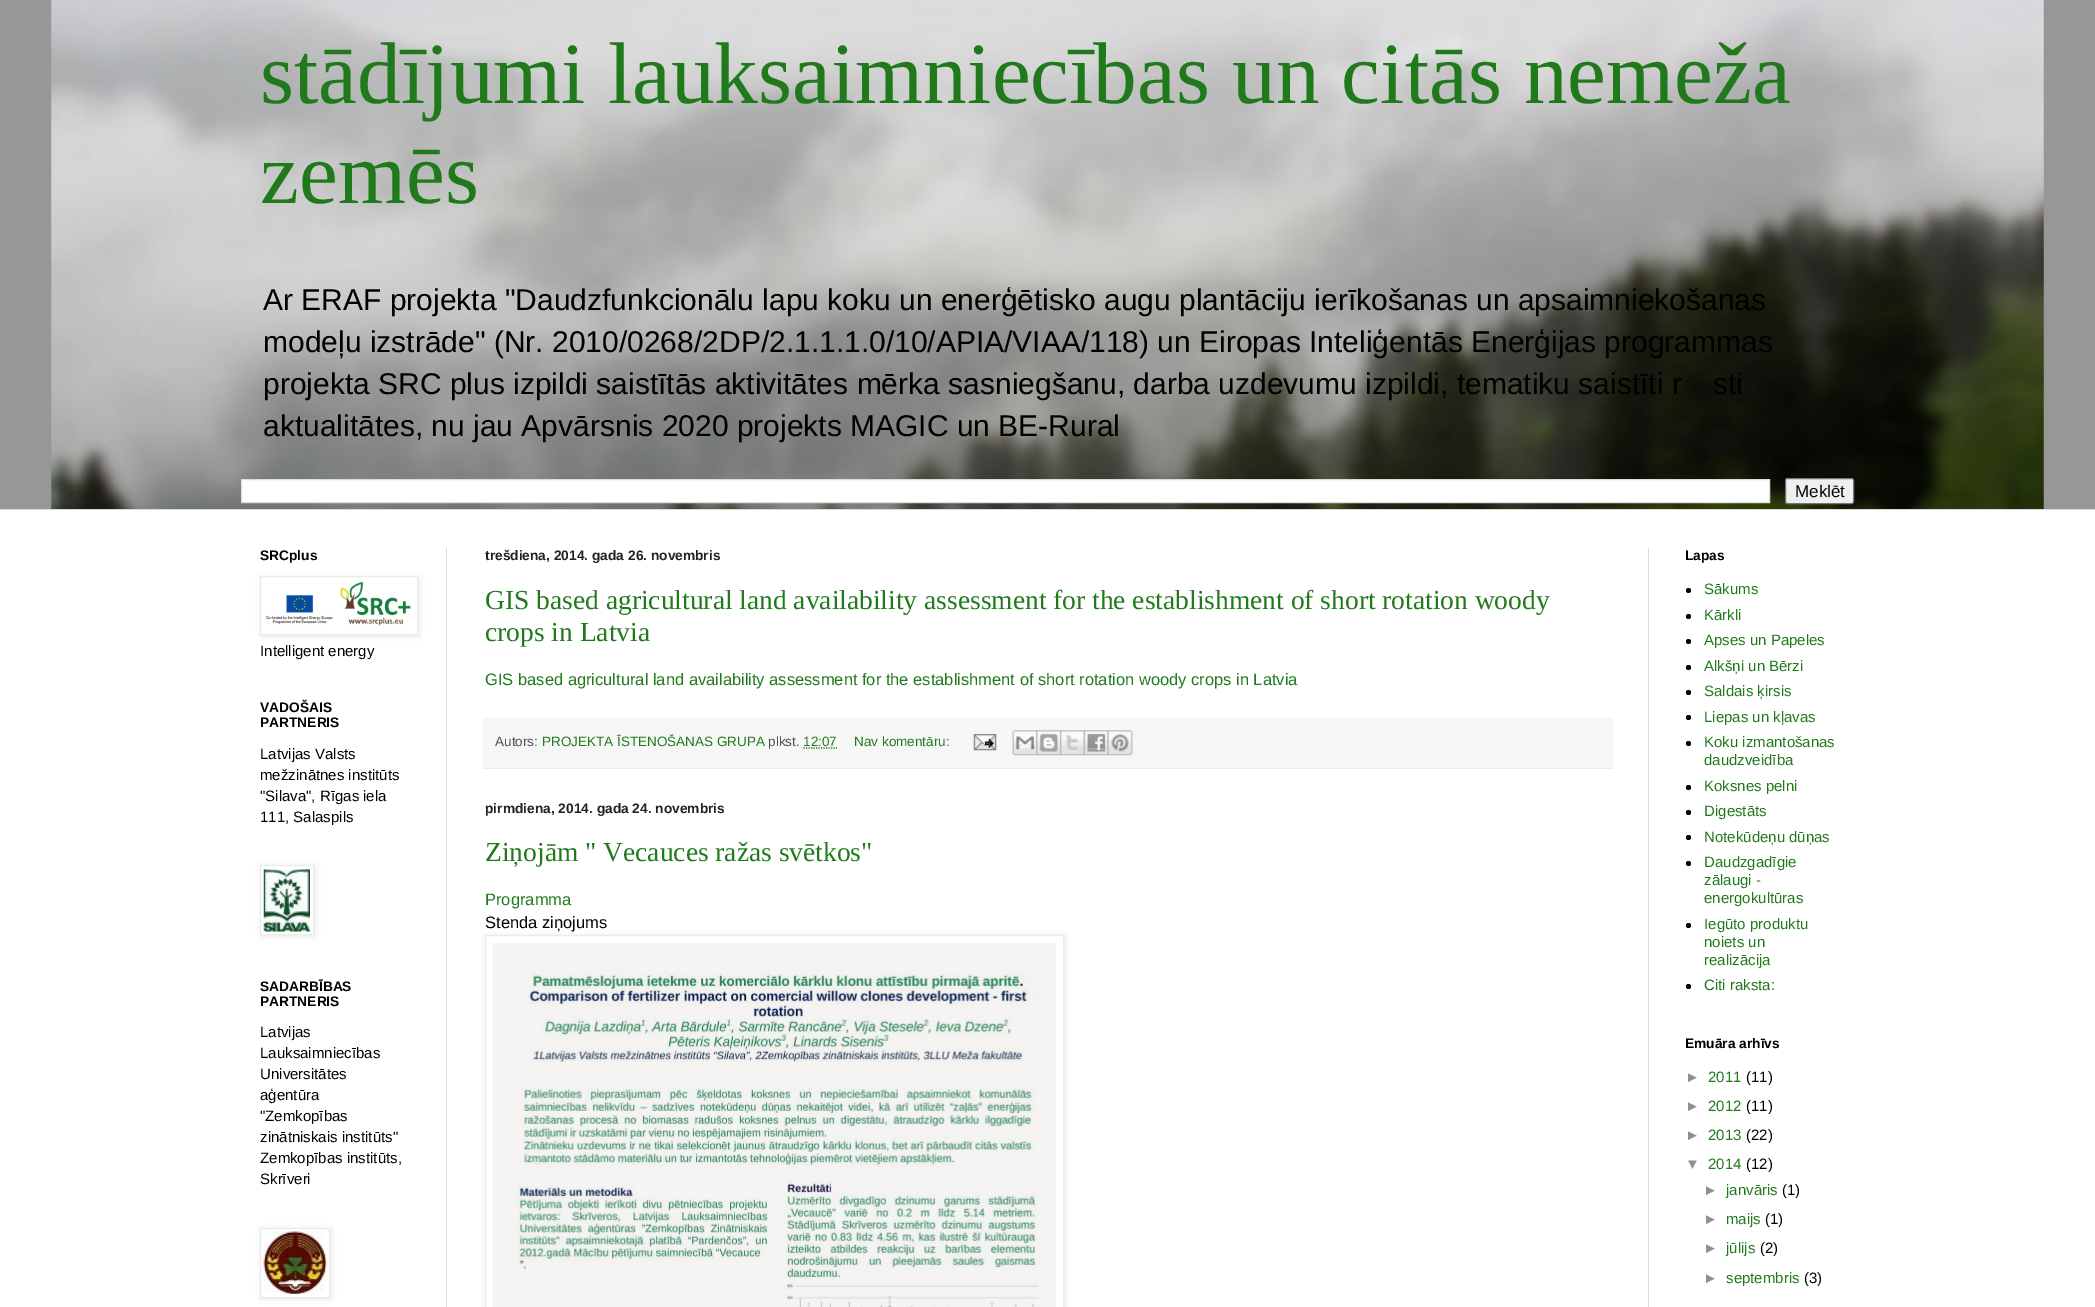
%!PS-Adobe-3.0
%%BoundingBox: 0 0 2095 1307
%%LanguageLevel: 3
%%Pages: 1
%%EndComments
%%BeginProlog
/setalpha { dup .setfillconstantalpha .setstrokeconstantalpha } def
/rrect { 5 dict begin { /r /h /w /y /x } { exch def } forall
  x r add y moveto x w add y 2 copy h add r arct x w add y h add x 1 index r arct
  x y h add x y r arct x y 2 copy exch w add exch r arct closepath end } def
/softshadow { 12 dict begin { /a /b /q /h /w /y /x } { exch def } forall gsave /was 0 def
  9 -2 -9 { dup b mul 4 div /e exch def 1 sub .425 mul 2.718 exch exp 1 add a .99 .min exch div /now exch def
    1 1 now sub 1 was sub div sub setalpha /was now def
    w h .min e 2 mul add 0 gt { x e sub y e sub w e 2 mul add h e 2 mul add
      q e add b .6 mul add w h .min 2 div e add .min 0 .max rrect fill } if } for grestore end } def
/drawimage { 5 dict begin { /h /w /y /x /name } { exch def } forall
  gsave x y translate w h scale
  w h 8 [w 0 0 h 0 0] name (r) file false 3 colorimage grestore end } def
%%EndProlog
%%BeginSetup
<< /PageSize [2095 1307] /PageUsesTransparency true >> setpagedevice
%%EndSetup
%%Page: 1 1
0 .pushpdf14devicefilter
0 1307 translate 1 -1 scale
4 setmiterlimit
0.592 0.592 0.584 setrgbcolor
0 0 2095 1307 rectfill
(images/1.raw) 51 0 1993 509 drawimage
1 setgray
newpath 241.5 479.5 moveto 1769.5 479.5 lineto 1769.5 502.5 lineto 241.5 502.5 lineto closepath gsave fill grestore
0.867 setgray
stroke
0.937 setgray
1785.5 478.5 68 25 2 rrect gsave fill grestore
0.463 setgray
stroke
1 setgray
0 510 2095 797 rectfill
0.851 setgray
0 509 2095 1 rectfill
446 548 1 759 rectfill
1648 548 1 759 rectfill
0 setgray
261 578 158 58 0 3 0.1 softshadow
1 setgray
newpath 260.5 576.5 moveto 417.5 576.5 lineto 417.5 634.5 lineto 260.5 634.5 lineto closepath gsave fill grestore
0.922 setgray
stroke
(images/2.raw) 265 581 147 45 drawimage
0 setgray
261 866 54 70 0 3 0.1 softshadow
1 setgray
newpath 260.5 865.5 moveto 313.5 865.5 lineto 313.5 934.5 lineto 260.5 934.5 lineto closepath gsave fill grestore
0.922 setgray
stroke
(images/3.raw) 263 869 47 63 drawimage
0 setgray
261 1229 70 70 0 3 0.1 softshadow
1 setgray
newpath 260.5 1228.5 moveto 329.5 1228.5 lineto 329.5 1297.5 lineto 260.5 1297.5 lineto closepath gsave fill grestore
0.922 setgray
stroke
(images/4.raw) 263 1231 64 63 drawimage
0.965 setgray
483 718 1130 50 rectfill
0.922 setgray
483 768 1130 1 rectfill
0.125 0.478 0.106 setrgbcolor
1.2 setlinewidth
[1.25 1.25] 0 setdash
newpath 803.5 748 moveto 837 748 lineto stroke
(images/5.raw) 973 734 24 17 drawimage
(images/6.raw) 1012 730 26 26 drawimage
(images/7.raw) 1036 730 26 26 drawimage
(images/8.raw) 1060 730 25 26 drawimage
(images/9.raw) 1083 730 26 26 drawimage
(images/10.raw) 1107 730 26 26 drawimage
0 setgray
486 936 579 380 0 3 0.1 softshadow
1 setgray
newpath 485.5 935.5 moveto 1063.5 935.5 lineto 1063.5 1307.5 lineto 485.5 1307.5 lineto closepath gsave fill grestore
0.922 setgray
1 setlinewidth
[] 0 setdash
stroke
(images/11.raw) 492 943 564 364 drawimage
0 setgray
newpath 1688.5 590.5 2.5 0 360 arc closepath fill
newpath 1688.5 616.5 2.5 0 360 arc closepath fill
newpath 1688.5 641.5 2.5 0 360 arc closepath fill
newpath 1688.5 667.5 2.5 0 360 arc closepath fill
newpath 1688.5 692.5 2.5 0 360 arc closepath fill
newpath 1688.5 717.5 2.5 0 360 arc closepath fill
newpath 1688.5 743.5 2.5 0 360 arc closepath fill
newpath 1688.5 787.5 2.5 0 360 arc closepath fill
newpath 1688.5 812.5 2.5 0 360 arc closepath fill
newpath 1688.5 837.5 2.5 0 360 arc closepath fill
newpath 1688.5 863.5 2.5 0 360 arc closepath fill
newpath 1688.5 925.5 2.5 0 360 arc closepath fill
newpath 1688.5 986.5 2.5 0 360 arc closepath fill
/LiberationSerif-Regular [87.5 0 0 -87.5 0 0] selectfont
0.125 0.478 0.106 setrgbcolor
260 103 moveto (stādījumi lauksaimniecības un citās nemeža) show
260 203 moveto (zemēs) show
/LiberationSans-Regular [30 0 0 -30 0 0] selectfont
0 setgray
263 310 moveto (Ar ERAF projekta "Daudzfunkcionālu lapu koku un enerģētisko augu plantāciju ierīkošanas un apsaimniekošanas) show
263 352 moveto (modeļu izstrāde" \(Nr. 2010/0268/2DP/2.1.1.1.0/10/APIA/VIAA/118\) un Eiropas Inteliģentās Enerģijas programmas) show
263 394 moveto (projekta SRC plus izpildi saistītās aktivitātes mērka sasniegšanu, darba uzdevumu izpildi, tematiku saistīti r) show
1713 394 moveto (sti) show
263 436 moveto (aktualitātes, nu jau Apvārsnis 2020 projekts MAGIC un BE-Rural) show
/LiberationSans-Regular [17 0 0 -17 0 0] selectfont
1795 497 moveto (Meklēt) show
/LiberationSans-Bold [13.75 0 0 -13.75 0 0] selectfont
260 560 moveto (SRCplus) show
/LiberationSans-Regular [15 0 0 -15 0 0] selectfont
260 656 moveto (Intelligent energy) show
/LiberationSans-Bold [13.75 0 0 -13.75 0 0] selectfont
260 712 moveto (VADOŠAIS) show
260 727 moveto (PARTNERIS) show
/LiberationSans-Regular [15 0 0 -15 0 0] selectfont
260 759 moveto (Latvijas Valsts) show
260 780 moveto (mežzinātnes institūts) show
260 801 moveto ("Silava", Rīgas iela) show
260 822 moveto (111, Salaspils) show
/LiberationSans-Bold [13.75 0 0 -13.75 0 0] selectfont
260 991 moveto (SADARBĪBAS) show
260 1006 moveto (PARTNERIS) show
/LiberationSans-Regular [15 0 0 -15 0 0] selectfont
260 1037 moveto (Latvijas) show
260 1058 moveto (Lauksaimniecības) show
260 1079 moveto (Universitātes) show
260 1100 moveto (aģentūra) show
260 1121 moveto ("Zemkopības) show
260 1142 moveto (zinātniskais institūts") show
260 1163 moveto (Zemkopības institūts,) show
260 1184 moveto (Skrīveri) show
/LiberationSans-Bold [13.75 0 0 -13.75 0 0] selectfont
0.133 setgray
485 560 moveto (trešdiena, 2014. gada 26. novembris) show
/LiberationSerif-Regular [27.5 0 0 -27.5 0 0] selectfont
0.125 0.478 0.106 setrgbcolor
485 609 moveto (GIS based agricultural land availability assessment for the establishment of short rotation woody) show
485 641 moveto (crops in Latvia) show
/LiberationSans-Regular [16.5 0 0 -16.5 0 0] selectfont
485 685 moveto (GIS based agricultural land availability assessment for the establishment of short rotation woody crops in Latvia) show
/LiberationSans-Regular [13.5 0 0 -13.5 0 0] selectfont
0.31 setgray
495 746 moveto (Autors:) show
0.125 0.478 0.106 setrgbcolor
542 746 moveto (PROJEKTA ĪSTENOŠANAS GRUPA) show
0.31 setgray
768 746 moveto (plkst.) show
0.125 0.478 0.106 setrgbcolor
803 746 moveto (12:07) show
854 746 moveto (Nav komentāru:) show
/LiberationSans-Bold [13.75 0 0 -13.75 0 0] selectfont
0.133 setgray
485 813 moveto (pirmdiena, 2014. gada 24. novembris) show
/LiberationSerif-Regular [27.5 0 0 -27.5 0 0] selectfont
0.125 0.478 0.106 setrgbcolor
485 861 moveto (Ziņojām " Vecauces ražas svētkos") show
/LiberationSans-Regular [16.5 0 0 -16.5 0 0] selectfont
485 905 moveto (Programma) show
0 setgray
485 928 moveto (Stenda ziņojums) show
/LiberationSans-Bold [13.75 0 0 -13.75 0 0] selectfont
1685 560 moveto (Lapas) show
/LiberationSans-Regular [15 0 0 -15 0 0] selectfont
0.125 0.478 0.106 setrgbcolor
1704 594 moveto (Sākums) show
1704 620 moveto (Kārkli) show
1704 645 moveto (Apses un Papeles) show
1704 671 moveto (Alkšņi un Bērzi) show
1704 696 moveto (Saldais ķirsis) show
1704 722 moveto (Liepas un kļavas) show
1704 747 moveto (Koku izmantošanas) show
1704 765 moveto (daudzveidība) show
1704 791 moveto (Koksnes pelni) show
1704 816 moveto (Digestāts) show
1704 842 moveto (Notekūdeņu dūņas) show
1704 867 moveto (Daudzgadīgie) show
1704 885 moveto (zālaugi -) show
1704 903 moveto (energokultūras) show
1704 929 moveto (Iegūto produktu) show
1704 947 moveto (noiets un) show
1704 965 moveto (realizācija) show
1704 990 moveto (Citi raksta:) show
/LiberationSans-Bold [13.75 0 0 -13.75 0 0] selectfont
0 setgray
1685 1048 moveto (Emuāra arhīvs) show
/LiberationSans-Regular [15 0 0 -15 0 0] selectfont
0.565 setgray
1685 1082 moveto (►) show
0.125 0.478 0.106 setrgbcolor
1708 1082 moveto (2011) show
0 setgray
1746 1082 moveto (\(11\)) show
0.565 setgray
1685 1111 moveto (►) show
0.125 0.478 0.106 setrgbcolor
1708 1111 moveto (2012) show
0 setgray
1746 1111 moveto (\(11\)) show
0.565 setgray
1685 1140 moveto (►) show
0.125 0.478 0.106 setrgbcolor
1708 1140 moveto (2013) show
0 setgray
1746 1140 moveto (\(22\)) show
0.565 setgray
1685 1169 moveto (▼) show
0.125 0.478 0.106 setrgbcolor
1708 1169 moveto (2014) show
0 setgray
1746 1169 moveto (\(12\)) show
0.565 setgray
1703 1195 moveto (►) show
0.125 0.478 0.106 setrgbcolor
1726 1195 moveto (janvāris) show
0 setgray
1782 1195 moveto (\(1\)) show
0.565 setgray
1703 1224 moveto (►) show
0.125 0.478 0.106 setrgbcolor
1726 1224 moveto (maijs) show
0 setgray
1765 1224 moveto (\(1\)) show
0.565 setgray
1703 1253 moveto (►) show
0.125 0.478 0.106 setrgbcolor
1726 1253 moveto (jūlijs) show
0 setgray
1760 1253 moveto (\(2\)) show
0.565 setgray
1703 1283 moveto (►) show
0.125 0.478 0.106 setrgbcolor
1726 1283 moveto (septembris) show
0 setgray
1804 1283 moveto (\(3\)) show
.poppdf14devicefilter showpage
%%EOF
